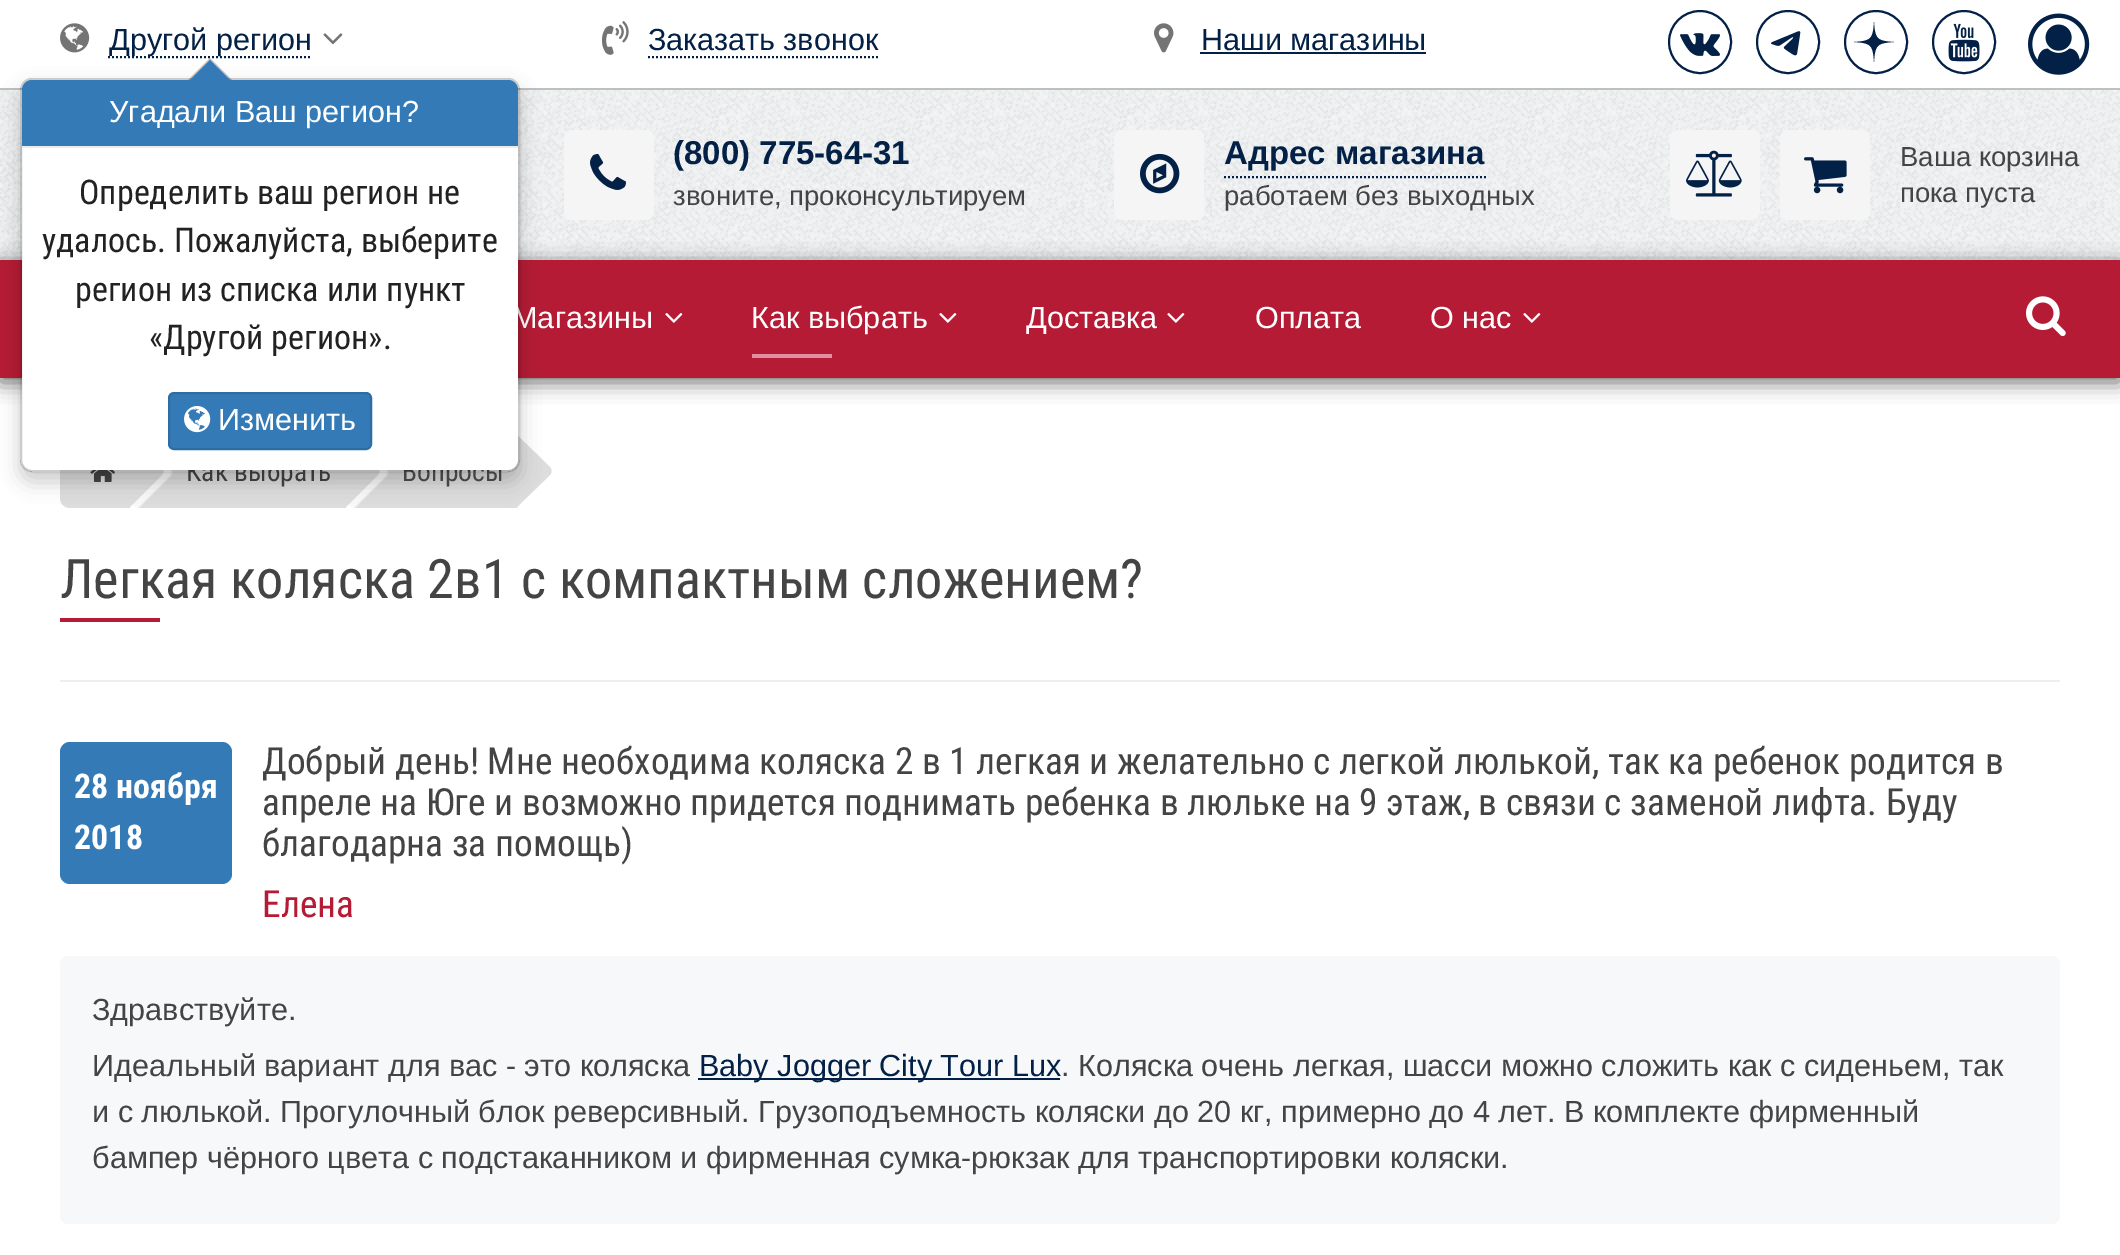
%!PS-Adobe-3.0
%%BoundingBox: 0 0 2120 1255
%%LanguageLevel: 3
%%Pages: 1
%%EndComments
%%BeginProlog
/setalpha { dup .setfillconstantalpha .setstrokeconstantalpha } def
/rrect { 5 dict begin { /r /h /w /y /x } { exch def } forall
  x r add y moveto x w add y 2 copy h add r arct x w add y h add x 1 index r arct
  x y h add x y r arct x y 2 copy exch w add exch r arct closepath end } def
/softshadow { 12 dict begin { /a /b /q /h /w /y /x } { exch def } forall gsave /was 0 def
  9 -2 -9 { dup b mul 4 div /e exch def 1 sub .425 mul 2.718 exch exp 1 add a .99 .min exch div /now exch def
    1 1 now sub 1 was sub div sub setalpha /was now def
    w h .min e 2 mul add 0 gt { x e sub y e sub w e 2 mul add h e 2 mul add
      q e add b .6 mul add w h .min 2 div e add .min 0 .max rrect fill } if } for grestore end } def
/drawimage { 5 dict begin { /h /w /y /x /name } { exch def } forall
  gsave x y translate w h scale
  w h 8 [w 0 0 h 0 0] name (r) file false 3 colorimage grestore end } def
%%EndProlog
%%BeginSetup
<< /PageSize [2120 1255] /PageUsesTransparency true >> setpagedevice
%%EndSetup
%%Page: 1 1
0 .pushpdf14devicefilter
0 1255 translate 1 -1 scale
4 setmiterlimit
1 setgray
0 0 2120 1255 rectfill
(images/1.raw) 0 90 2120 170 drawimage
0.749 setgray
0 88 2120 2 rectfill
(images/2.raw) 60 23 30 30 drawimage
0.012 0.129 0.275 setrgbcolor
2 setlinewidth
[2 2] 0 setdash
newpath 108 57 moveto 312 57 lineto stroke
(images/3.raw) 323 33 20 12 drawimage
(images/5.raw) 602 21 27 34 drawimage
newpath 648 57 moveto 878 57 lineto stroke
(images/6.raw) 1154 23 20 30 drawimage
1200 52 226 2 rectfill
[] 0 setdash
newpath 1700 42 31 0 360 arc closepath stroke
(images/7.raw) 1680 33 40 23 drawimage
newpath 1788 42 31 0 360 arc closepath stroke
(images/8.raw) 1771 31 30 25 drawimage
newpath 1876 42 31 0 360 arc closepath stroke
newpath 1894 42 moveto 1877 41 1875 39 1874 22 curveto 1873 39 1871 41 1854 42 curveto 1871 43 1873 45 1874 62 curveto 1875 45 1877 43 1894 42 curveto fill
newpath 1964 42 31 0 360 arc closepath stroke
(images/9.raw) 1948 23 32 39 drawimage
(images/10.raw) 2028 13 62 62 drawimage
0.961 setgray
564 130 90 90 8 rrect fill
(images/11.raw) 590 153 37 37 drawimage
1114 130 90 90 8 rrect fill
(images/12.raw) 1140 153 40 41 drawimage
0.012 0.129 0.275 setrgbcolor
[2 2] 0 setdash
newpath 1224 177 moveto 1486 177 lineto stroke
0.961 setgray
1670 130 90 90 8 rrect fill
(images/13.raw) 1686 150 56 47 drawimage
1780 130 90 90 8 rrect fill
(images/14.raw) 1804 157 43 37 drawimage
0.4 setgray
0 264 2120 118 0 10 1 softshadow
0.71 0.106 0.208 setrgbcolor
0 260 2120 118 rectfill
(images/15.raw) 665 313 18 10 drawimage
(images/15.raw) 939 313 18 10 drawimage
0.886 0.561 0.635 setrgbcolor
752 354 80 4 rectfill
(images/15.raw) 1167 313 18 10 drawimage
(images/15.raw) 1523 313 18 10 drawimage
(images/16.raw) 2026 296 40 41 drawimage
0.867 setgray
newpath 70 436 moveto 130 436 lineto 130 508 lineto 70 508 lineto 64.5 508 60 503.5 60 498 curveto 60 446 lineto 60 440.5 64.5 436 70 436 curveto closepath fill
(images/17.raw) 90 470 25 12 drawimage
newpath 140 436 moveto 346 436 lineto 346 508 lineto 140 508 lineto 134.5 508 130 503.5 130 498 curveto 130 446 lineto 130 440.5 134.5 436 140 436 curveto closepath fill
0.2 setalpha
1 setgray
newpath 141 436 moveto 131 436 lineto 162 467 lineto 164 469 164 473 162 475 curveto 131 506 lineto 136 511 lineto 170 477 lineto 173 474 173 469 170 465 curveto closepath fill
0.4 setalpha
newpath 141 436 moveto 131 436 lineto 162 467 lineto 164 469 164 473 162 475 curveto 131 506 lineto 136 511 lineto 170 477 lineto 173 474 173 469 170 465 curveto closepath fill
0.6 setalpha
newpath 139 436 moveto 131 436 lineto 162 467 lineto 164 469 164 473 162 475 curveto 130 507 lineto 134 511 lineto 168 477 lineto 171 474 171 469 168 465 curveto closepath fill
1 setalpha
0.867 setgray
newpath 131 436 moveto 162 467 lineto 164 469 164 473 162 475 curveto 130 507 lineto 110 487 110 456 129 436 curveto closepath fill
newpath 356 436 moveto 518 436 lineto 518 508 lineto 356 508 lineto 350.5 508 346 503.5 346 498 curveto 346 446 lineto 346 440.5 350.5 436 356 436 curveto closepath fill
0.2 setalpha
1 setgray
newpath 357 436 moveto 347 436 lineto 378 467 lineto 380 469 380 473 378 475 curveto 347 506 lineto 352 511 lineto 386 477 lineto 389 474 389 469 386 465 curveto closepath fill
0.4 setalpha
newpath 357 436 moveto 347 436 lineto 378 467 lineto 380 469 380 473 378 475 curveto 347 506 lineto 352 511 lineto 386 477 lineto 389 474 389 469 386 465 curveto closepath fill
0.6 setalpha
newpath 355 436 moveto 347 436 lineto 378 467 lineto 380 469 380 473 378 475 curveto 346 507 lineto 350 511 lineto 384 477 lineto 387 474 387 469 384 465 curveto closepath fill
1 setalpha
newpath 517 436 moveto 515 438 lineto closepath 526 436 moveto 518 436 lineto 550 467 lineto 552 469 552 473 550 475 curveto 517 507 lineto 521 511 lineto 556 477 lineto 559 474 559 469 556 465 curveto closepath eofill
0.867 setgray
newpath 518 436 moveto 550 467 lineto 552 469 552 473 550 475 curveto 517 507 lineto 498 487 498 456 516 436 curveto closepath fill
0.933 setgray
60 680 2000 2 rectfill
0.71 0.106 0.208 setrgbcolor
60 618 100 4 rectfill
0.2 0.478 0.718 setrgbcolor
60 742 172 142 10 rrect fill
0.969 0.973 0.98 setrgbcolor
60 956 2000 268 8 rrect fill
0.012 0.129 0.275 setrgbcolor
698 1078 362 2 rectfill
/LiberationSans-Regular [30.6 0 0 -30.6 0 0] selectfont
109 50 moveto (Другой регион) show
648 50 moveto (Заказать звонок) show
1201 50 moveto (Наши магазины) show
/LiberationSans-Bold [33 0 0 -33 0 0] selectfont
673 164 moveto (\(800\) 775-64-31) show
/LiberationSans-Regular [27.5 0 0 -27.5 0 0] selectfont
0.267 setgray
673 205 moveto (звоните, проконсультируем) show
/LiberationSans-Bold [33 0 0 -33 0 0] selectfont
0.012 0.129 0.275 setrgbcolor
1224 164 moveto (Адрес магазина) show
/LiberationSans-Regular [27.5 0 0 -27.5 0 0] selectfont
0.267 setgray
1224 205 moveto (работаем без выходных) show
1900 166 moveto (Ваша корзина) show
1900 202 moveto (пока пуста) show
/LiberationSans-Regular [30.6 0 0 -30.6 0 0] selectfont
1 setgray
512 328 moveto (Магазины) show
751 328 moveto (Как выбрать) show
1026 328 moveto (Доставка) show
1255 328 moveto (Оплата) show
1430 328 moveto (О нас) show
/RobotoCondensed-Regular [27.5 0 0 -27.5 0 0] selectfont
0.267 setgray
186 481 moveto (Как выбрать) show
0.867 setgray
newpath 347 436 moveto 378 467 lineto 380 469 380 473 378 475 curveto 346 507 lineto 326 487 326 456 345 436 curveto closepath fill
gsave
newpath 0 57 moveto 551 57 lineto 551 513 lineto 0 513 lineto closepath 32 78 moveto 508 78 lineto 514.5 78 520 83.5 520 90 curveto 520 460 lineto 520 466.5 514.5 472 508 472 curveto 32 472 lineto 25.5 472 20 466.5 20 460 curveto 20 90 lineto 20 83.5 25.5 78 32 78 curveto closepath eoclip newpath
0 setgray
20 88 500 394 12 10 0.2 softshadow
grestore
0.267 setgray
402 481 moveto (Вопросы) show
1 setgray
22 80 496 390 10 rrect fill
0.2 setalpha
0 setgray
[] 0 setdash
21 79 498 392 11 rrect stroke
0.25 setalpha
newpath 232 80 moveto 188 80 lineto 210 58 lineto closepath fill
1 setalpha
0.2 0.478 0.718 setrgbcolor
newpath 230 80 moveto 190 80 lineto 210 60 lineto closepath fill
169 393 202 56 5 rrect gsave fill grestore
0.18 0.427 0.643 setrgbcolor
stroke
/LiberationSans-Regular [30.6 0 0 -30.6 0 0] selectfont
1 setgray
218 430 moveto (Изменить) show
(images/4.raw) 184 406 27 27 drawimage
/RobotoCondensed-Regular [34 0 0 -34 0 0] selectfont
0.133 setgray
149 349 moveto («Другой регион».) show
75 301 moveto (регион из списка или пункт) show
42 252 moveto (удалось. Пожалуйста, выберите) show
79 204 moveto (Определить ваш регион не) show
0.2 0.478 0.718 setrgbcolor
newpath 32 80 moveto 508 80 lineto 513.5 80 518 84.5 518 90 curveto 518 148 lineto 22 148 lineto 22 90 lineto 22 84.5 26.5 80 32 80 curveto closepath fill
/LiberationSans-Regular [30.6 0 0 -30.6 0 0] selectfont
1 setgray
109 122 moveto (Угадали Ваш регион?) show
0.922 setgray
22 146 496 2 rectfill
/RobotoCondensed-Regular [54.4 0 0 -54.4 0 0] selectfont
0.267 setgray
60 598 moveto (Легкая коляска 2в1 с компактным сложением?) show
/RobotoCondensed-Bold [34 0 0 -34 0 0] selectfont
1 setgray
74 798 moveto (28 ноября) show
74 849 moveto (2018) show
/RobotoCondensed-Regular [37.4 0 0 -37.4 0 0] selectfont
0.267 setgray
262 774 moveto (Добрый день! Мне необходима коляска 2 в 1 легкая и желательно с легкой люлькой, так ка ребенок родится в) show
262 815 moveto (апреле на Юге и возможно придется поднимать ребенка в люльке на 9 этаж, в связи с заменой лифта. Буду) show
262 856 moveto (благодарна за помощь\)) show
0.71 0.106 0.208 setrgbcolor
262 917 moveto (Елена) show
/LiberationSans-Regular [30.6 0 0 -30.6 0 0] selectfont
0.267 setgray
92 1020 moveto (Здравствуйте.) show
92 1076 moveto (Идеальный вариант для вас - это коляска) show
0.012 0.129 0.275 setrgbcolor
699 1076 moveto (Baby Jogger City Tour Lux) show
0.267 setgray
1061 1076 moveto (. Коляска очень легкая, шасси можно сложить как с сиденьем, так) show
92 1122 moveto (и с люлькой. Прогулочный блок реверсивный. Грузоподъемность коляски до 20 кг, примерно до 4 лет. В комплекте фирменный) show
92 1168 moveto (бампер чёрного цвета с подстаканником и фирменная сумка-рюкзак для транспортировки коляски.) show
.poppdf14devicefilter showpage
%%EOF
